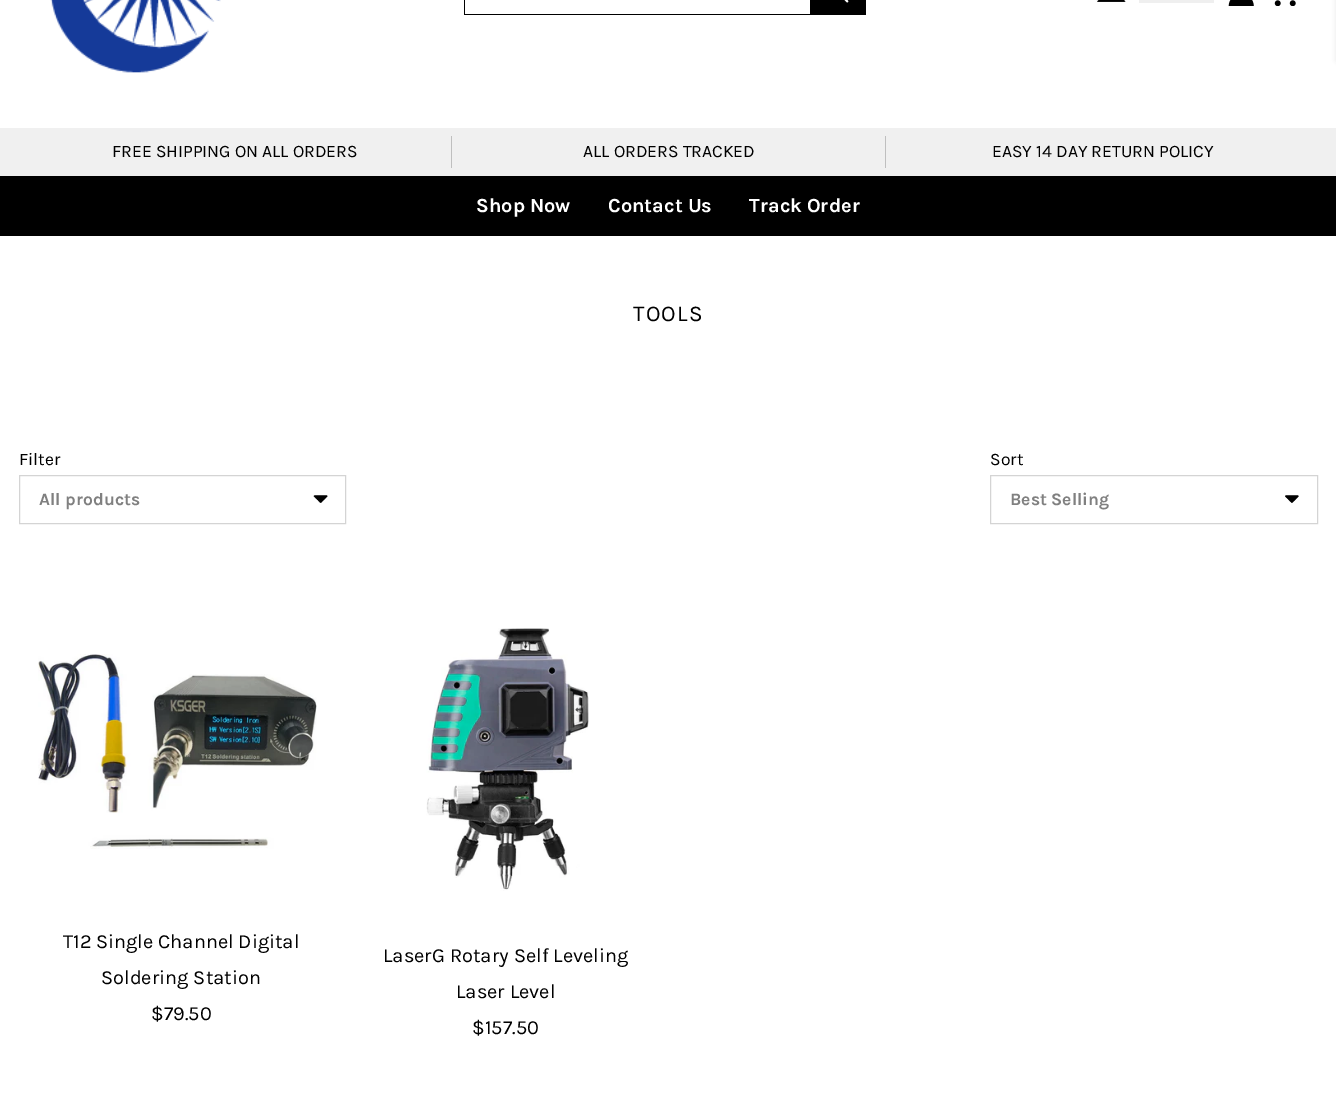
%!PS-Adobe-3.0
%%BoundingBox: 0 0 1336 1112
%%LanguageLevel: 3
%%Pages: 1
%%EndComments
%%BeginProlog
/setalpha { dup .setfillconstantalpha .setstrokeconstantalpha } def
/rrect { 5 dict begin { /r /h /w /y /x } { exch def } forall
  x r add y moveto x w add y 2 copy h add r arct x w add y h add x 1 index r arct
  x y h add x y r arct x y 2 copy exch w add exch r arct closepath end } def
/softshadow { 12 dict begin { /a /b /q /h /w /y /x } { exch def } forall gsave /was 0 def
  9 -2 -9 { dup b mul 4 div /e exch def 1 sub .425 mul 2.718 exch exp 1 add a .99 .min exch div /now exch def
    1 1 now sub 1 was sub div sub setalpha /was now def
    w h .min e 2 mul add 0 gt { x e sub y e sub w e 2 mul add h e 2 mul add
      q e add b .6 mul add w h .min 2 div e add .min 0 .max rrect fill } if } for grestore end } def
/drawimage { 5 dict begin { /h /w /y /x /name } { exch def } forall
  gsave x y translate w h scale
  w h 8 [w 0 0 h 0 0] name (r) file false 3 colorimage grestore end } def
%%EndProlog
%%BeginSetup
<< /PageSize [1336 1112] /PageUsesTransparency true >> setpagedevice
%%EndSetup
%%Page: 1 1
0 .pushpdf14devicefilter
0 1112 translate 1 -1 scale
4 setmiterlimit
1 setgray
0 0 1336 1112 rectfill
(images/1.raw) 50 0 171 73 drawimage
0 setgray
464 14 346 1 rectfill
464 0 1 15 rectfill
810 0 56 15 rectfill
(images/2.raw) 844 0 5 3 drawimage
(images/3.raw) 1096 0 30 2 drawimage
0.937 setgray
1139 0 75 3 rectfill
(images/4.raw) 1228 0 26 6 drawimage
(images/5.raw) 1274 0 22 6 drawimage
0.941 setgray
0 128 1336 48 rectfill
0.749 setgray
451 136 1 32 rectfill
885 136 1 32 rectfill
0 setgray
0 176 1336 60 rectfill
0.8 setgray
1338 0 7 60 0 3 1 softshadow
(images/6.raw) 313 495 15 8 drawimage
0.831 setgray
19.5 475.5 326 48 rectstroke
(images/7.raw) 1285 495 14 8 drawimage
990.5 475.5 327 48 rectstroke
(images/8.raw) 38 654 279 195 drawimage
(images/9.raw) 426 628 163 263 drawimage
/Karla-Regular [17.5 0 0 -17.5 0 0] selectfont
0 setgray
112 157 moveto (FREE SHIPPING ON ALL ORDERS) show
583 157 moveto (ALL ORDERS TRACKED) show
992 157 moveto (EASY 14 DAY RETURN POLICY) show
/Karla-Bold [20 0 0 -20 0 0] selectfont
1 setgray
476 212 moveto (Shop Now) show
608 212 moveto (Contact Us) show
749 212 moveto (Track Order) show
/Karla-Regular [22.5 0 0 -22.5 0 0] selectfont
0 setgray
633 321 moveto 1.25 0 (TOOLS) ashow
/Karla-Regular [17.5 0 0 -17.5 0 0] selectfont
19 465 moveto (Filter) show
/Karla-Bold [17.5 0 0 -17.5 0 0] selectfont
0.502 setgray
39 505 moveto (All products) show
/Karla-Regular [17.5 0 0 -17.5 0 0] selectfont
0 setgray
990 465 moveto (Sort) show
/Karla-Bold [17.5 0 0 -17.5 0 0] selectfont
0.502 setgray
1010 505 moveto (Best Selling) show
/Karla-Regular [20 0 0 -20 0 0] selectfont
0 setgray
63 948 moveto (T12 Single Channel Digital) show
101 984 moveto (Soldering Station) show
151 1020 moveto ($79.50) show
383 962 moveto (LaserG Rotary Self Leveling) show
456 998 moveto (Laser Level) show
472 1034 moveto ($157.50) show
.poppdf14devicefilter showpage
%%EOF
